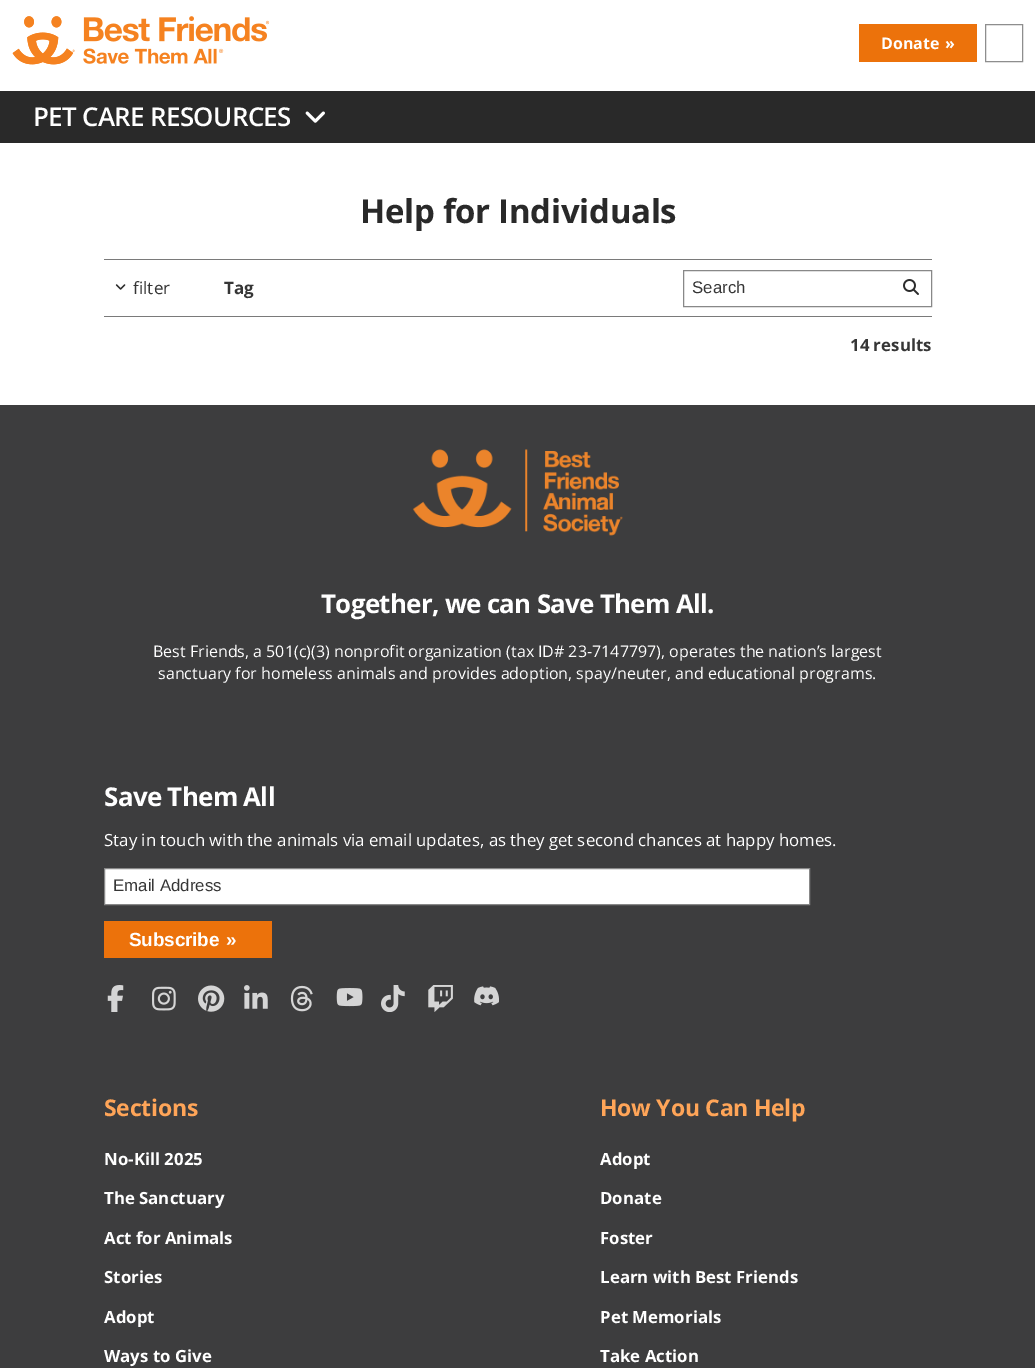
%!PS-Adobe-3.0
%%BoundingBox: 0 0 1035 1368
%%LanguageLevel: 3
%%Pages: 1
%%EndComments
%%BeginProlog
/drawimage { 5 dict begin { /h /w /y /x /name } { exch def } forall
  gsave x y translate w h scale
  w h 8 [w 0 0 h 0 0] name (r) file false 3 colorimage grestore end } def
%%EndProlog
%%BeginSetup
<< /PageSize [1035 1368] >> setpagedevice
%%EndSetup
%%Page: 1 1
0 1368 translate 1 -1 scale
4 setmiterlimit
1 setgray
0 0 1035 1368 rectfill
(images/1.raw) 12 16 258 49 drawimage
0.925 0.447 0.043 setrgbcolor
859 24 118 38 rectfill
0.557 setgray
985.5 24.5 37 37 rectstroke
0.161 setgray
0 91 1035 52 rectfill
(images/2.raw) 305 111 20 12 drawimage
0.478 setgray
104 259 828 1 rectfill
104 316 828 1 rectfill
(images/3.raw) 115 284 11 6 drawimage
0.533 setgray
683.5 270.5 248 36 rectstroke
(images/4.raw) 903 279 16 16 drawimage
0.239 0.239 0.243 setrgbcolor
0 405 1035 963 rectfill
(images/5.raw) 412 449 211 87 drawimage
1 setgray
newpath 104.5 868.5 moveto 809.5 868.5 lineto 809.5 904.5 lineto 104.5 904.5 lineto closepath gsave fill grestore
0.533 setgray
stroke
0.925 0.447 0.043 setrgbcolor
104 921 168 37 rectfill
(images/6.raw) 107 985 17 27 drawimage
(images/7.raw) 152 986 24 25 drawimage
(images/8.raw) 198 985 27 27 drawimage
(images/9.raw) 244 985 24 24 drawimage
(images/10.raw) 290 985 23 27 drawimage
(images/11.raw) 336 988 27 19 drawimage
(images/12.raw) 381 985 24 27 drawimage
(images/13.raw) 428 985 25 27 drawimage
(images/14.raw) 474 986 25 20 drawimage
/OpenSans-Bold [16 0 0 -16 0 0] selectfont
1 setgray
881 49 moveto (Donate) show
945 49 moveto (») show
/OpenSans-SemiBold [25.9 0 0 -25.9 0 0] selectfont
33 126 moveto -0.65 0 (PET CARE RESOURCES) ashow
/OpenSans-Bold [33 0 0 -33 0 0] selectfont
0.161 setgray
360 223 moveto -0.3 0 (Help for Individuals) ashow
/OpenSans-Regular [17 0 0 -17 0 0] selectfont
0.212 setgray
133 294 moveto 0.05 0 (filter) ashow
/OpenSans-Bold [17 0 0 -17 0 0] selectfont
224 294 moveto 0.05 0 (Tag) ashow
/LiberationSans-Regular [16.8 0 0 -16.8 0 0] selectfont
692 293 moveto 0.05 0 (Search) ashow
/OpenSans-Bold [16.8 0 0 -16.8 0 0] selectfont
850 351 moveto -0.25 0 32 0.05 0 (14 results) awidthshow
/OpenSans-Bold [25.9 0 0 -25.9 0 0] selectfont
1 setgray
321 613 moveto -0.25 0 32 -0.65 0 (Together, we can Save Them All.) awidthshow
/OpenSans-Regular [16 0 0 -16 0 0] selectfont
153 657 moveto -0.25 0 32 0.05 0 (Best Friends, a 501\(c\)\(3\) nonprofit organization \(tax ID# 23-7147797\), operates the nation’s largest) awidthshow
158 679 moveto -0.25 0 32 0.05 0 (sanctuary for homeless animals and provides adoption, spay/neuter, and educational programs.) awidthshow
/OpenSans-Bold [25.9 0 0 -25.9 0 0] selectfont
104 806 moveto -0.25 0 32 -0.65 0 (Save Them All) awidthshow
/OpenSans-Regular [16.8 0 0 -16.8 0 0] selectfont
104 846 moveto -0.25 0 32 0.05 0 (Stay in touch with the animals via email updates, as they get second chances at happy homes.) awidthshow
/LiberationSans-Regular [16.8 0 0 -16.8 0 0] selectfont
0.212 setgray
113 891 moveto -0.25 0 32 0.05 0 (Email Address) awidthshow
/LiberationSans-Bold [19 0 0 -19 0 0] selectfont
1 setgray
129 946 moveto -0.2 0 (Subscribe) ashow
226 946 moveto -0.2 0 (») ashow
/OpenSans-Bold [23 0 0 -23 0 0] selectfont
1 0.647 0.345 setrgbcolor
104 1116 moveto -0.2 0 (Sections) ashow
/OpenSans-Bold [16.8 0 0 -16.8 0 0] selectfont
1 setgray
104 1165 moveto -0.25 0 32 0.05 0 (No-Kill 2025) awidthshow
104 1204 moveto -0.25 0 32 0.05 0 (The Sanctuary) awidthshow
104 1244 moveto -0.25 0 32 0.05 0 (Act for Animals) awidthshow
104 1283 moveto 0.05 0 (Stories) ashow
104 1323 moveto 0.05 0 (Adopt) ashow
104 1362 moveto -0.25 0 32 0.05 0 (Ways to Give) awidthshow
/OpenSans-Bold [23 0 0 -23 0 0] selectfont
1 0.647 0.345 setrgbcolor
600 1116 moveto -0.25 0 32 -0.2 0 (How You Can Help) awidthshow
/OpenSans-Bold [16.8 0 0 -16.8 0 0] selectfont
1 setgray
600 1165 moveto 0.05 0 (Adopt) ashow
600 1204 moveto 0.05 0 (Donate) ashow
600 1244 moveto 0.05 0 (Foster) ashow
600 1283 moveto -0.25 0 32 0.05 0 (Learn with Best Friends) awidthshow
600 1323 moveto -0.25 0 32 0.05 0 (Pet Memorials) awidthshow
600 1362 moveto -0.25 0 32 0.05 0 (Take Action) awidthshow
showpage
%%EOF
